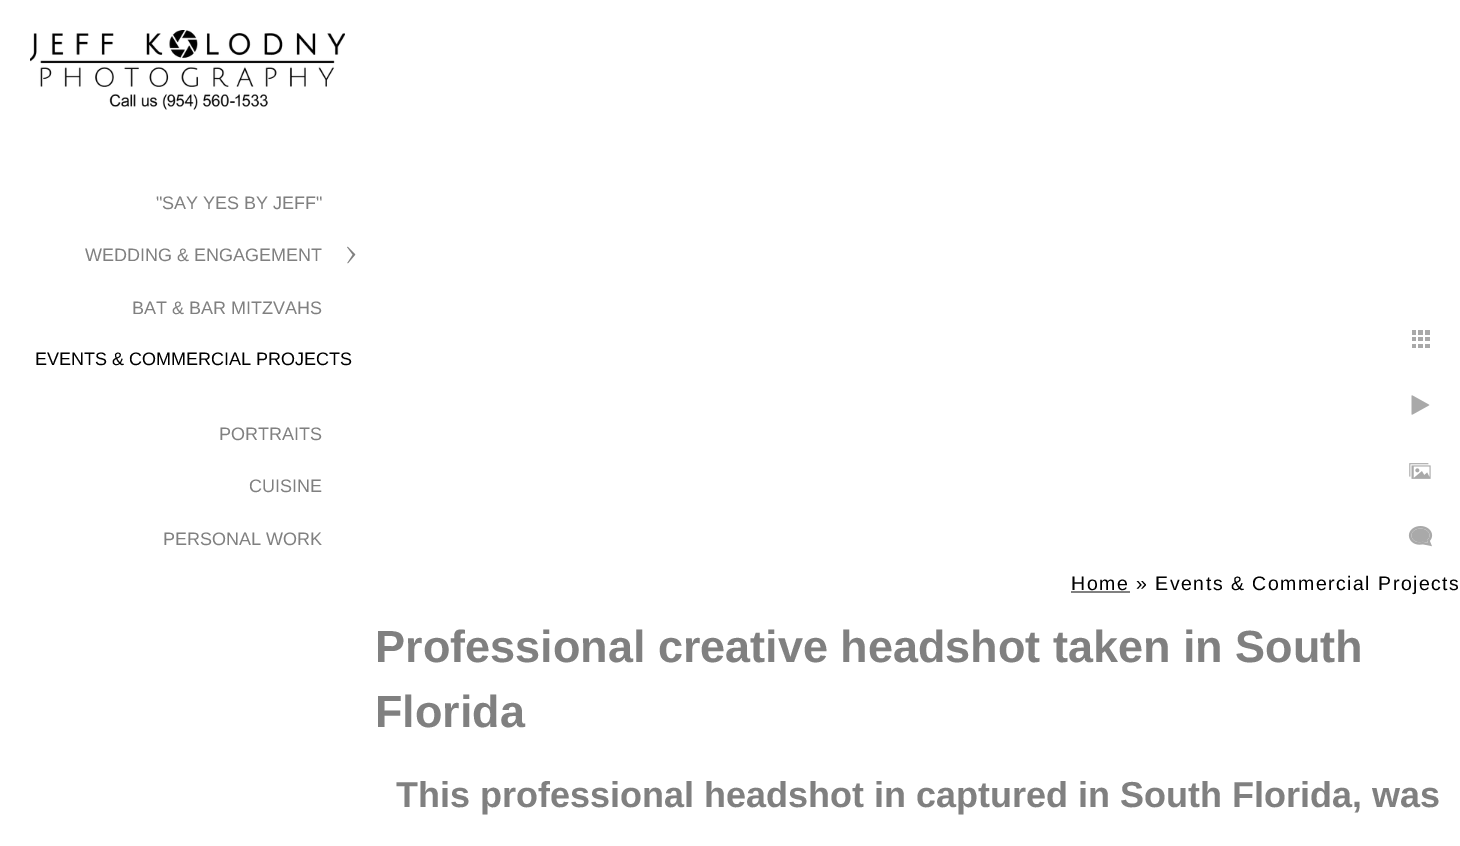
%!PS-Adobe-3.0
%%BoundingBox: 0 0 1460 846
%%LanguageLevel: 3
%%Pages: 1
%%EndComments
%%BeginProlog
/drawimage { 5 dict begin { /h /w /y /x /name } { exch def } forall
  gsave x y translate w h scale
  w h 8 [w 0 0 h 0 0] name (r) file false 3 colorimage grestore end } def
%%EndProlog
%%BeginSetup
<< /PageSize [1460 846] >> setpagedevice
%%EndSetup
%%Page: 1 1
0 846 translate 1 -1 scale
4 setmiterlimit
1 setgray
0 0 1460 846 rectfill
(images/1.raw) 30 30 315 80 drawimage
(images/2.raw) 347 246 9 18 drawimage
(images/3.raw) 1412 330 18 18 drawimage
(images/4.raw) 1411 395 19 20 drawimage
(images/5.raw) 1409 463 22 16 drawimage
(images/6.raw) 1408 526 25 21 drawimage
0.502 setgray
1071 591 59 2 rectfill
/LiberationSans-Regular [18 0 0 -18 0 0] selectfont
156 209 moveto ("SAY YES BY JEFF") show
85 261 moveto (WEDDING & ENGAGEMENT) show
132 314 moveto (BAT & BAR MITZVAHS) show
0 setgray
35 365 moveto (EVENTS & COMMERCIAL PROJECTS) show
0.502 setgray
219 440 moveto (PORTRAITS) show
249 492 moveto (CUISINE) show
163 545 moveto (PERSONAL WORK) show
/LiberationSans-Regular [19.5 0 0 -19.5 0 0] selectfont
0 setgray
1071 590 moveto 1.5 0 (Home » Events & Commercial Projects) ashow
/LiberationSans-Bold [45 0 0 -45 0 0] selectfont
0.502 setgray
375 662 moveto (Professional creative headshot taken in South) show
375 727 moveto (Florida) show
/LiberationSans-Bold [36 0 0 -36 0 0] selectfont
396 807 moveto (This professional headshot in captured in South Florida, was) show
showpage
%%EOF
